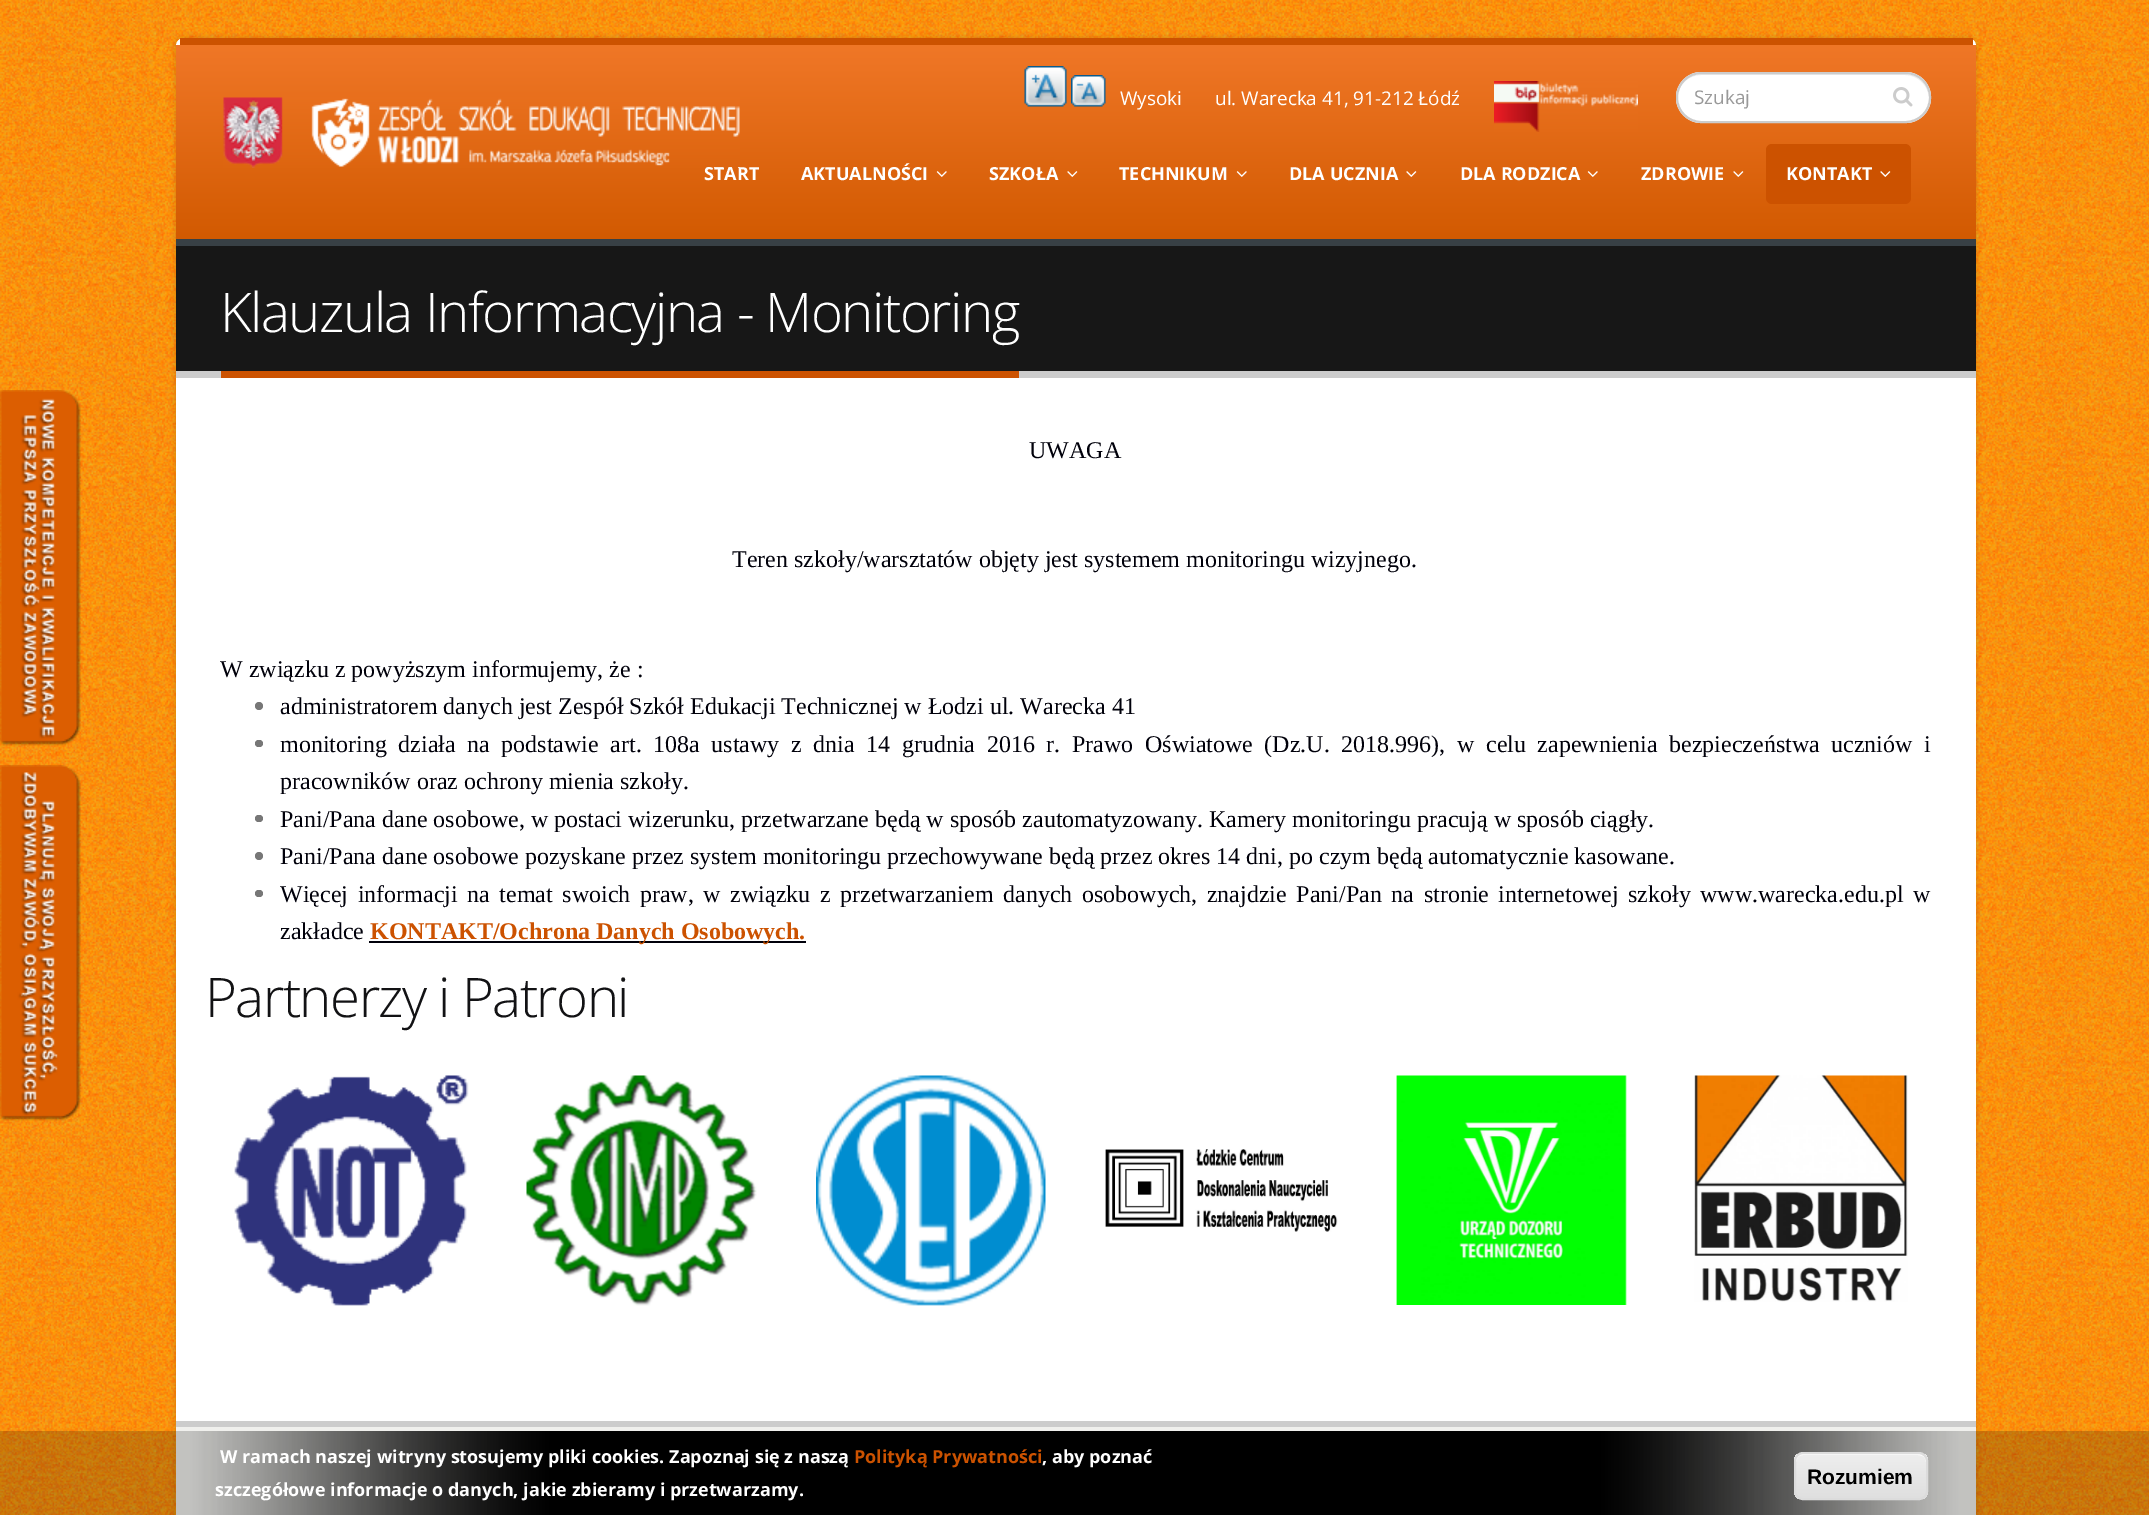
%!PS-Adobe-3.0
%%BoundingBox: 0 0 2149 1515
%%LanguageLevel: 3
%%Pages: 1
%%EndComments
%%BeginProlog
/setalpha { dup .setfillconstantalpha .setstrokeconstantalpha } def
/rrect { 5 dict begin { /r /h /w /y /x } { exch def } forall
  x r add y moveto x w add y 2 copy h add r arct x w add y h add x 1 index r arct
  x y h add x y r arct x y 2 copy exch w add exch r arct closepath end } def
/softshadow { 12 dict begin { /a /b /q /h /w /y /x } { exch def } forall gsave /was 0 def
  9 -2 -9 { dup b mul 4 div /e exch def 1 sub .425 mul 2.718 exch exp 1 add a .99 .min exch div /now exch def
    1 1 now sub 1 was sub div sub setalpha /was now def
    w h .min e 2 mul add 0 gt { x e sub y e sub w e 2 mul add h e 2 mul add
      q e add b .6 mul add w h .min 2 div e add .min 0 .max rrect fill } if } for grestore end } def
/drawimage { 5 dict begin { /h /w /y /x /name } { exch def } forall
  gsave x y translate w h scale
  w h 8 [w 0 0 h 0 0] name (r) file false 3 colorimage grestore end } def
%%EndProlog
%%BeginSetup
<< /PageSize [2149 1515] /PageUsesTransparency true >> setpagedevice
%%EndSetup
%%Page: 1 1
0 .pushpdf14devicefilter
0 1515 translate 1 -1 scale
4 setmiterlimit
1 setgray
0 0 2149 1515 rectfill
(images/1.raw) 0 0 2149 1515 drawimage
(images/2.raw) 0 390 81 356 drawimage
0 setgray
176 38 1800 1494 8 3 0.15 softshadow
1 setgray
176 38 1800 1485 8 rrect fill
0.8 0.322 0 setrgbcolor
180 38 1793 7 rectfill
gsave newpath 176 45 moveto 1976 45 lineto 1976 239 lineto 176 239 lineto closepath clip newpath
<< /ShadingType 2 /ColorSpace /DeviceRGB /Coords [1076 45 1076 239] /Extend [true true] /Function << /FunctionType 2 /Domain [0 1] /C0 [0.941 0.467 0.153] /C1 [0.824 0.353 0.004] /N 1 >> >> shfill grestore
(images/4.raw) 1024 66 43 41 drawimage
(images/5.raw) 1071 75 35 32 drawimage
(images/6.raw) 1494 81 144 51 drawimage
1 setgray
1676 72 255 51 25.5 rrect fill
0.925 setgray
newpath 1701 75 moveto 1905 75 lineto 1918 75 1929 86 1929 99 curveto 1929 98 lineto 1929 85 1918 74 1905 74 curveto 1701 74 lineto 1688 74 1677 85 1677 98 curveto 1677 99 lineto 1677 86 1688 75 1701 75 curveto closepath fill
0.8 setgray
2 setlinewidth
1677 73 253 49 24.5 rrect stroke
(images/7.raw) 1893 87 20 20 drawimage
(images/8.raw) 936 171 11 6 drawimage
(images/9.raw) 1067 171 11 6 drawimage
(images/8.raw) 1236 171 11 6 drawimage
(images/9.raw) 1406 171 11 6 drawimage
(images/8.raw) 1587 171 11 6 drawimage
(images/9.raw) 1733 171 11 6 drawimage
0.8 0.322 0 setrgbcolor
1766 144 145 60 6 rrect fill
(images/10.raw) 1880 171 11 6 drawimage
0.09 setgray
176 246 1800 125 rectfill
0.22 0.251 0.271 setrgbcolor
176 239 1800 7 rectfill
0.8 setgray
176 371 1800 7 rectfill
0.8 0.322 0 setrgbcolor
221 371 798 7 rectfill
0.467 setgray
newpath 259 706 4 0 360 arc closepath fill
255 740 8 7 3.5 rrect fill
255 815 8 7 3.5 rrect fill
newpath 259 856 4 0 360 arc closepath fill
255 890 8 7 3.5 rrect fill
0 0 0.039 setrgbcolor
369 941 437 2 rectfill
(images/11.raw) 234 1075 235 231 drawimage
(images/12.raw) 526 1075 231 231 drawimage
(images/13.raw) 816 1075 230 231 drawimage
(images/14.raw) 1105 1149 233 83 drawimage
(images/15.raw) 1396 1075 231 230 drawimage
(images/16.raw) 1694 1075 214 227 drawimage
0.941 0.941 0.929 setrgbcolor
176 1427 1800 88 rectfill
0.8 setgray
176 1421 1800 6 rectfill
(images/17.raw) 0 765 81 356 drawimage
(images/18.raw) 0 1431 2149 84 drawimage
gsave
1794 1452 134 48 9 rrect clip newpath
gsave newpath 1794 1454 moveto 1928 1454 lineto 1928 1499 lineto 1794 1499 lineto closepath clip newpath
<< /ShadingType 2 /ColorSpace /DeviceRGB /Coords [1861 1454 1861 1499] /Extend [true true] /Function << /FunctionType 3 /Domain [0 1] /Functions [<< /FunctionType 2 /Domain [0 1] /C0 [0.929 0.929 0.929] /C1 [0.929 0.929 0.929] /N 1 >> << /FunctionType 2 /Domain [0 1] /C0 [0.929 0.929 0.929] /C1 [0.875 0.875 0.875] /N 1 >>] /Bounds [0.05] /Encode [0 1 0 1] >> >> shfill grestore
grestore
1 setgray
newpath 1803 1455 moveto 1918 1455 lineto 1923 1455 1926 1458 1926 1462 curveto 1926 1458 1922 1454 1918 1454 curveto 1804 1454 lineto 1800 1454 1796 1458 1796 1462 curveto 1796 1458 1799 1455 1803 1455 curveto closepath fill
0.863 setgray
1795 1453 132 46 8 rrect stroke
/OpenSans-Regular [18.9 0 0 -18.9 0 0] selectfont
1 setgray
1120 105 moveto (Wysoki) show
1215 105 moveto (ul. Warecka 41, 91-212 Łódź) show
0.6 setgray
1694 104 moveto (Szukaj) show
/OpenSans-Bold [18 0 0 -18 0 0] selectfont
1 setgray
704 180 moveto (START) show
(images/3.raw) 223 97 517 71 drawimage
801 180 moveto (AKTUALNOŚCI) show
989 180 moveto (SZKOŁA) show
1119 180 moveto (TECHNIKUM) show
1289 180 moveto (DLA UCZNIA) show
1460 180 moveto (DLA RODZICA) show
1641 180 moveto (ZDROWIE) show
1786 180 moveto (KONTAKT) show
/OpenSans-Light [54.6 0 0 -54.6 0 0] selectfont
220 332 moveto -1.5 0 (Klauzula Informacyjna - Monitoring) ashow
/LiberationSerif-Regular [24 0 0 -24 0 0] selectfont
0 0 0.039 setrgbcolor
1029 458 moveto (UWAGA) show
732 567 moveto (Teren szkoły/warsztatów objęty jest systemem monitoringu wizyjnego.) show
220 677 moveto (W związku z powyższym informujemy, że :) show
280 714 moveto (administratorem danych jest Zespół Szkół Edukacji Technicznej w Łodzi ul. Warecka 41) show
280 752 moveto 5.6 0 32 (monitoring działa na podstawie art. 108a ustawy z dnia 14 grudnia 2016 r. Prawo Oświatowe \(Dz.U. 2018.996\), w celu zapewnienia bezpieczeństwa uczniów i) widthshow
280 789 moveto (pracowników oraz ochrony mienia szkoły.) show
280 827 moveto (Pani/Pana dane osobowe, w postaci wizerunku, przetwarzane będą w sposób zautomatyzowany. Kamery monitoringu pracują w sposób ciągły.) show
280 864 moveto (Pani/Pana dane osobowe pozyskane przez system monitoringu przechowywane będą przez okres 14 dni, po czym będą automatycznie kasowane.) show
280 902 moveto 3.6 0 32 (Więcej informacji na temat swoich praw, w związku z przetwarzaniem danych osobowych, znajdzie Pani/Pan na stronie internetowej szkoły) widthshow
1700 902 moveto 3.6 0 32 (www.warecka.edu.pl w) widthshow
280 939 moveto (zakładce) show
/LiberationSerif-Bold [24 0 0 -24 0 0] selectfont
0.8 0.322 0 setrgbcolor
370 939 moveto (KONTAKT/Ochrona Danych Osobowych.) show
/OpenSans-Light [54.6 0 0 -54.6 0 0] selectfont
0.071 0.071 0.078 setrgbcolor
205 1017 moveto -1.5 0 (Partnerzy i Patroni) ashow
/OpenSans-Bold [18 0 0 -18 0 0] selectfont
1 setgray
220 1463 moveto (W ramach naszej witryny stosujemy pliki cookies. Zapoznaj się z naszą) show
0.8 0.322 0 setrgbcolor
854 1463 moveto (Polityką Prywatności) show
1 setgray
1042 1463 moveto (, aby poznać) show
215 1496 moveto (szczegółowe informacje o danych, jakie zbieramy i przetwarzamy.) show
/LiberationSans-Bold [21 0 0 -21 0 0] selectfont
0 setgray
1807 1484 moveto (Rozumiem) show
.poppdf14devicefilter showpage
%%EOF
